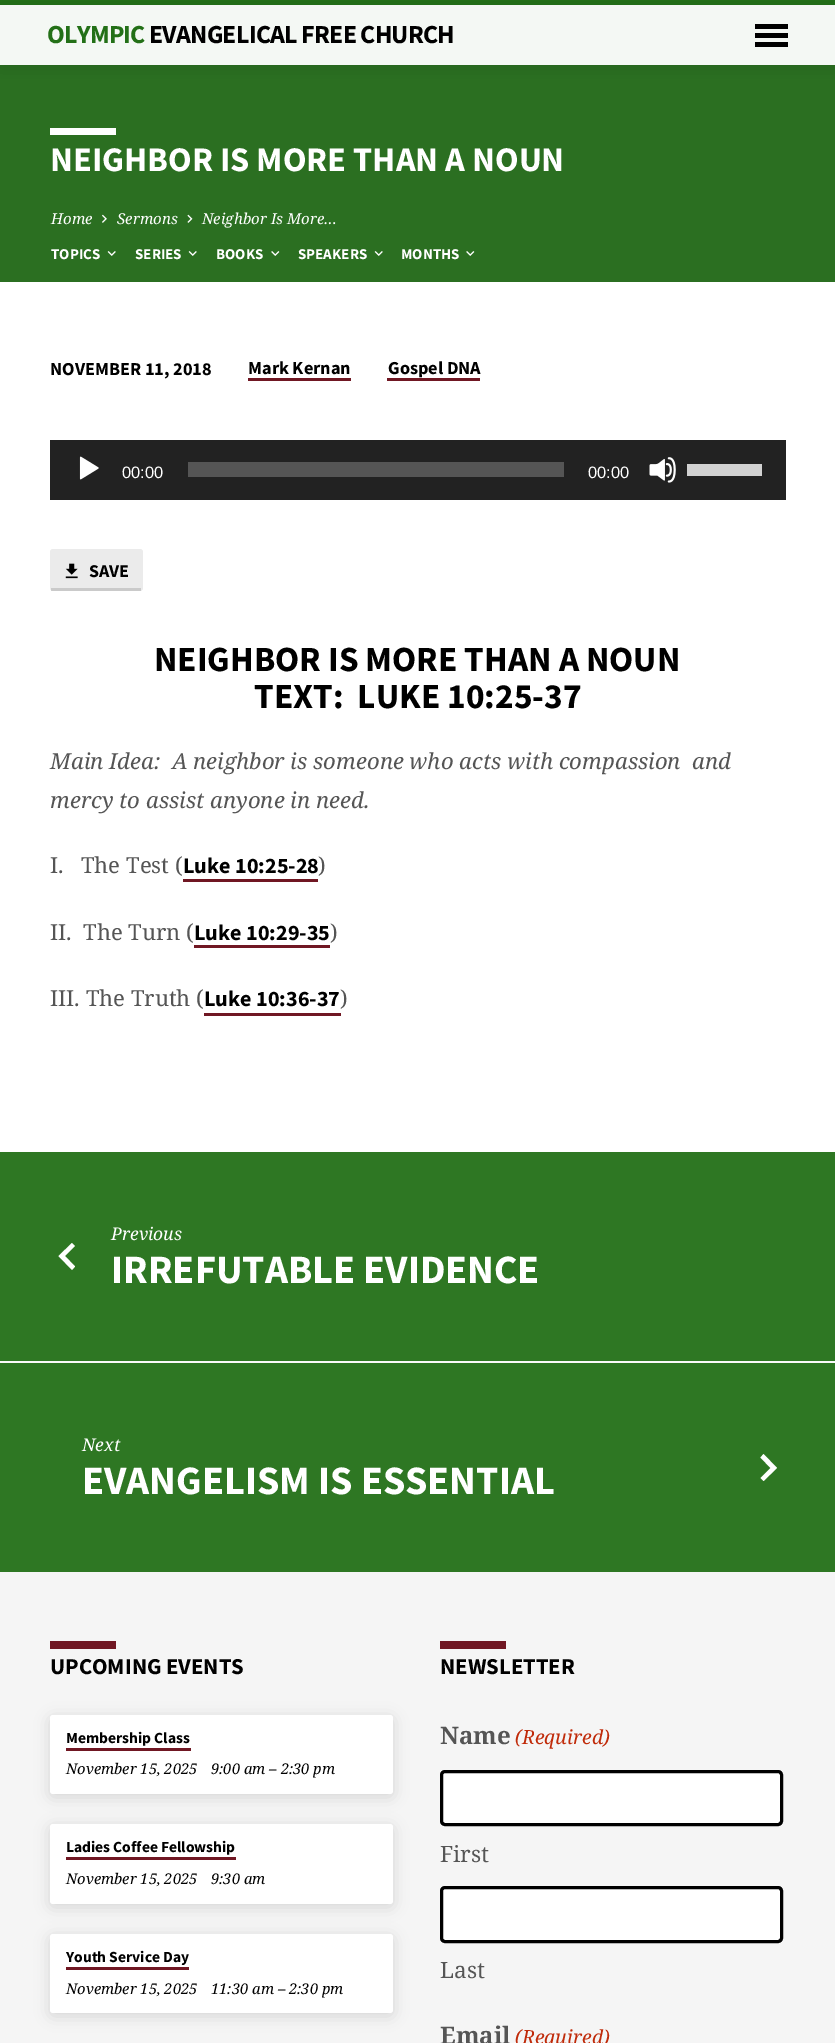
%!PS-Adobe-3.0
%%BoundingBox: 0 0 835 2043
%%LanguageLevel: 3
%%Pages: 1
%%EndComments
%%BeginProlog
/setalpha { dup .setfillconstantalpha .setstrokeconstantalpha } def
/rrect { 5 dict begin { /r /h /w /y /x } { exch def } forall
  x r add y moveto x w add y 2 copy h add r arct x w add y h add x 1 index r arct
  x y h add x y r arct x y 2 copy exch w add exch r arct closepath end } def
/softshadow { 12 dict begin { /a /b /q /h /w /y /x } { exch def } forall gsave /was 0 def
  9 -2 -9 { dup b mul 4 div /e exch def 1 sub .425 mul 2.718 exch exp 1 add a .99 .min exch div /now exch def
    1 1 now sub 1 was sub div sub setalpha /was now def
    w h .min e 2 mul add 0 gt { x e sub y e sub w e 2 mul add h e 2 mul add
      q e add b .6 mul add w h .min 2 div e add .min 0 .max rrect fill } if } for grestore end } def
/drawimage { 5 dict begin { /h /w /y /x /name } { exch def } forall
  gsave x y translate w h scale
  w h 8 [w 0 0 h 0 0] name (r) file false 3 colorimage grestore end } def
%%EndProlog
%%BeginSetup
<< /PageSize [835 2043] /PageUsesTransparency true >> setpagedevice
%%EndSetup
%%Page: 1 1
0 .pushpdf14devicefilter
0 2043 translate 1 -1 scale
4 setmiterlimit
1 setgray
0 0 835 2043 rectfill
0.137 0.439 0.094 setrgbcolor
0 0 835 5 rectfill
0.957 0.973 0.957 setrgbcolor
0 5 835 60 rectfill
0.169 0.435 0.129 setrgbcolor
0 65 835 217 rectfill
gsave
newpath 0 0 moveto 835 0 lineto 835 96 lineto 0 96 lineto closepath 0 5 moveto 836 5 lineto 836 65 lineto 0 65 lineto closepath eoclip newpath
0 setgray
0 8 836 60 0 9 0.14 softshadow
grestore
0 setgray
755 24 33 5 rectfill
755 33 33 5 rectfill
755 42 33 5 rectfill
1 setgray
50 128 66 7 rectfill
(images/1.raw) 102 214 5 9 drawimage
(images/2.raw) 187 214 6 9 drawimage
(images/3.raw) 107 251 9 5 drawimage
(images/3.raw) 188 251 9 5 drawimage
(images/4.raw) 271 251 9 5 drawimage
(images/3.raw) 374 251 9 5 drawimage
(images/4.raw) 466 251 9 5 drawimage
0.439 0.09 0.137 setrgbcolor
248 378 103 3 rectfill
387 378 93 3 rectfill
0.133 setgray
50 440 736 60 rectfill
(images/5.raw) 79 456 20 24 drawimage
0.333 setgray
188 462 376 15 rectfill
(images/6.raw) 649 457 27 26 drawimage
0.824 setgray
687 464 75 12 rectfill
0.922 setgray
50 549 93 42 3 rrect fill
0.18 setalpha
0.196 setgray
51 588 90 3 rectfill
1 setalpha
(images/7.raw) 65 563 13 16 drawimage
0.439 0.09 0.137 setrgbcolor
183 879 135 3 rectfill
194 945 136 3 rectfill
204 1013 137 3 rectfill
0.18 0.467 0.137 setrgbcolor
0 1152 835 420 rectfill
0.98 setgray
0 1361 835 2 rectfill
1 setgray
newpath 75 1266.5 moveto 65 1256 lineto 75 1246 lineto 72 1243 lineto 58.5 1256 lineto 72 1270 lineto closepath fill
newpath 760.5 1478 moveto 770.5 1468 lineto 760.5 1457.5 lineto 763.5 1454 lineto 777 1468 lineto 763.5 1481 lineto closepath fill
0.961 setgray
0 1572 835 471 rectfill
0.439 0.09 0.137 setrgbcolor
50 1641 66 8 rectfill
0 setgray
50 1718 343 79 3 7.5 0.12 softshadow
1 setgray
50 1715 343 79 3 rrect fill
0.439 0.09 0.137 setrgbcolor
66 1748 125 3 rectfill
0 setgray
50 1827 343 80 3 7.5 0.12 softshadow
1 setgray
50 1824 343 80 3 rrect fill
0.439 0.09 0.137 setrgbcolor
66 1857 170 3 rectfill
0 setgray
50 1937 343 79 3 7.5 0.12 softshadow
1 setgray
50 1934 343 79 3 rrect fill
0.439 0.09 0.137 setrgbcolor
66 1967 123 3 rectfill
440 1641 66 8 rectfill
1 setgray
441.5 1771.5 340 53 3.5 rrect gsave fill grestore
0 setgray
3 setlinewidth
stroke
1 setgray
441.5 1887.5 340 54 3.5 rrect gsave fill grestore
0 setgray
stroke
/SourceSansPro-Bold [26 0 0 -26 0 0] selectfont
0.137 0.439 0.09 setrgbcolor
47 43 moveto -0.8 0 (OLYMPIC) ashow
0 setgray
149 43 moveto -0.8 0 (EVANGELICAL FREE CHURCH) ashow
/SourceSansPro-Bold [34.5 0 0 -34.5 0 0] selectfont
1 setgray
50 171 moveto (NEIGHBOR IS MORE THAN A NOUN) show
/NotoSerif-Italic [15 0 0 -15 0 0] selectfont
51 224 moveto (Home) show
117 224 moveto (Sermons) show
202 224 moveto (Neighbor Is More…) show
/SourceSansPro-Bold [15 0 0 -15 0 0] selectfont
51 259 moveto (TOPICS) show
135 259 moveto (SERIES) show
216 259 moveto (BOOKS) show
298 259 moveto (SPEAKERS) show
401 259 moveto (MONTHS) show
/SourceSansPro-Bold [18.25 0 0 -18.25 0 0] selectfont
0 setgray
50 375 moveto (NOVEMBER 11, 2018) show
248 374 moveto (Mark Kernan) show
388 374 moveto (Gospel DNA) show
/LiberationSans-Regular [16.5 0 0 -16.5 0 0] selectfont
1 setgray
122 478 moveto (00:00) show
588 478 moveto (00:00) show
/SourceSansPro-Bold [18 0 0 -18 0 0] selectfont
0 setgray
89 577 moveto (SAVE) show
/SourceSansPro-Bold [35.3 0 0 -35.3 0 0] selectfont
154 671 moveto (NEIGHBOR IS MORE THAN A NOUN) show
254 708 moveto (TEXT:  LUKE 10:25-37) show
/NotoSerif-Italic [22.1 0 0 -22.1 0 0] selectfont
0.333 setgray
50 769 moveto (Main Idea:  A neighbor is someone who acts with compassion  and) show
50 808 moveto (mercy to assist anyone in need.) show
/NotoSerif-Regular [22.1 0 0 -22.1 0 0] selectfont
50 873 moveto (I.   The Test \() show
/SourceSansPro-Bold [22.1 0 0 -22.1 0 0] selectfont
0 setgray
183 873 moveto (Luke 10:25-28) show
/NotoSerif-Regular [22.1 0 0 -22.1 0 0] selectfont
0.333 setgray
318 873 moveto (\)) show
50 940 moveto (II.  The Turn \() show
/SourceSansPro-Bold [22.1 0 0 -22.1 0 0] selectfont
0 setgray
194 940 moveto (Luke 10:29-35) show
/NotoSerif-Regular [22.1 0 0 -22.1 0 0] selectfont
0.333 setgray
330 940 moveto (\)) show
50 1006 moveto (III. The Truth \() show
/SourceSansPro-Bold [22.1 0 0 -22.1 0 0] selectfont
0 setgray
204 1006 moveto (Luke 10:36-37) show
/NotoSerif-Regular [22.1 0 0 -22.1 0 0] selectfont
0.333 setgray
340 1006 moveto (\)) show
/NotoSerif-Italic [17.5 0 0 -17.5 0 0] selectfont
1 setgray
111 1240 moveto (Previous) show
/SourceSansPro-Bold [40.25 0 0 -40.25 0 0] selectfont
111 1283 moveto (IRREFUTABLE EVIDENCE) show
/NotoSerif-Italic [17.5 0 0 -17.5 0 0] selectfont
82 1451 moveto (Next) show
/SourceSansPro-Bold [40.25 0 0 -40.25 0 0] selectfont
82 1494 moveto (EVANGELISM IS ESSENTIAL) show
/SourceSansPro-Bold [22.75 0 0 -22.75 0 0] selectfont
0 setgray
50 1674 moveto (UPCOMING EVENTS) show
/SourceSansPro-Bold [15.5 0 0 -15.5 0 0] selectfont
66 1743 moveto (Membership Class) show
/NotoSerif-Italic [14.75 0 0 -14.75 0 0] selectfont
66 1774 moveto (November 15, 2025) show
211 1774 moveto (9:00 am – 2:30 pm) show
/SourceSansPro-Bold [15.5 0 0 -15.5 0 0] selectfont
66 1852 moveto (Ladies Coffee Fellowship) show
/NotoSerif-Italic [14.75 0 0 -14.75 0 0] selectfont
66 1884 moveto (November 15, 2025) show
211 1884 moveto (9:30 am) show
/SourceSansPro-Bold [15.5 0 0 -15.5 0 0] selectfont
66 1962 moveto (Youth Service Day) show
/NotoSerif-Italic [14.75 0 0 -14.75 0 0] selectfont
66 1994 moveto (November 15, 2025) show
211 1994 moveto (11:30 am – 2:30 pm) show
/SourceSansPro-Bold [22.75 0 0 -22.75 0 0] selectfont
440 1674 moveto (NEWSLETTER) show
/NotoSerif-Bold [24 0 0 -24 0 0] selectfont
0.333 setgray
440 1744 moveto (Name) show
/NotoSerif-Italic [19.5 0 0 -19.5 0 0] selectfont
0.753 0.169 0.039 setrgbcolor
515 1744 moveto (\(Required\)) show
/NotoSerif-Regular [22.5 0 0 -22.5 0 0] selectfont
0.333 setgray
440 1862 moveto (First) show
440 1978 moveto (Last) show
/NotoSerif-Bold [24 0 0 -24 0 0] selectfont
440 2044 moveto (Email) show
/NotoSerif-Italic [19.5 0 0 -19.5 0 0] selectfont
0.753 0.169 0.039 setrgbcolor
515 2044 moveto (\(Required\)) show
.poppdf14devicefilter showpage
%%EOF
